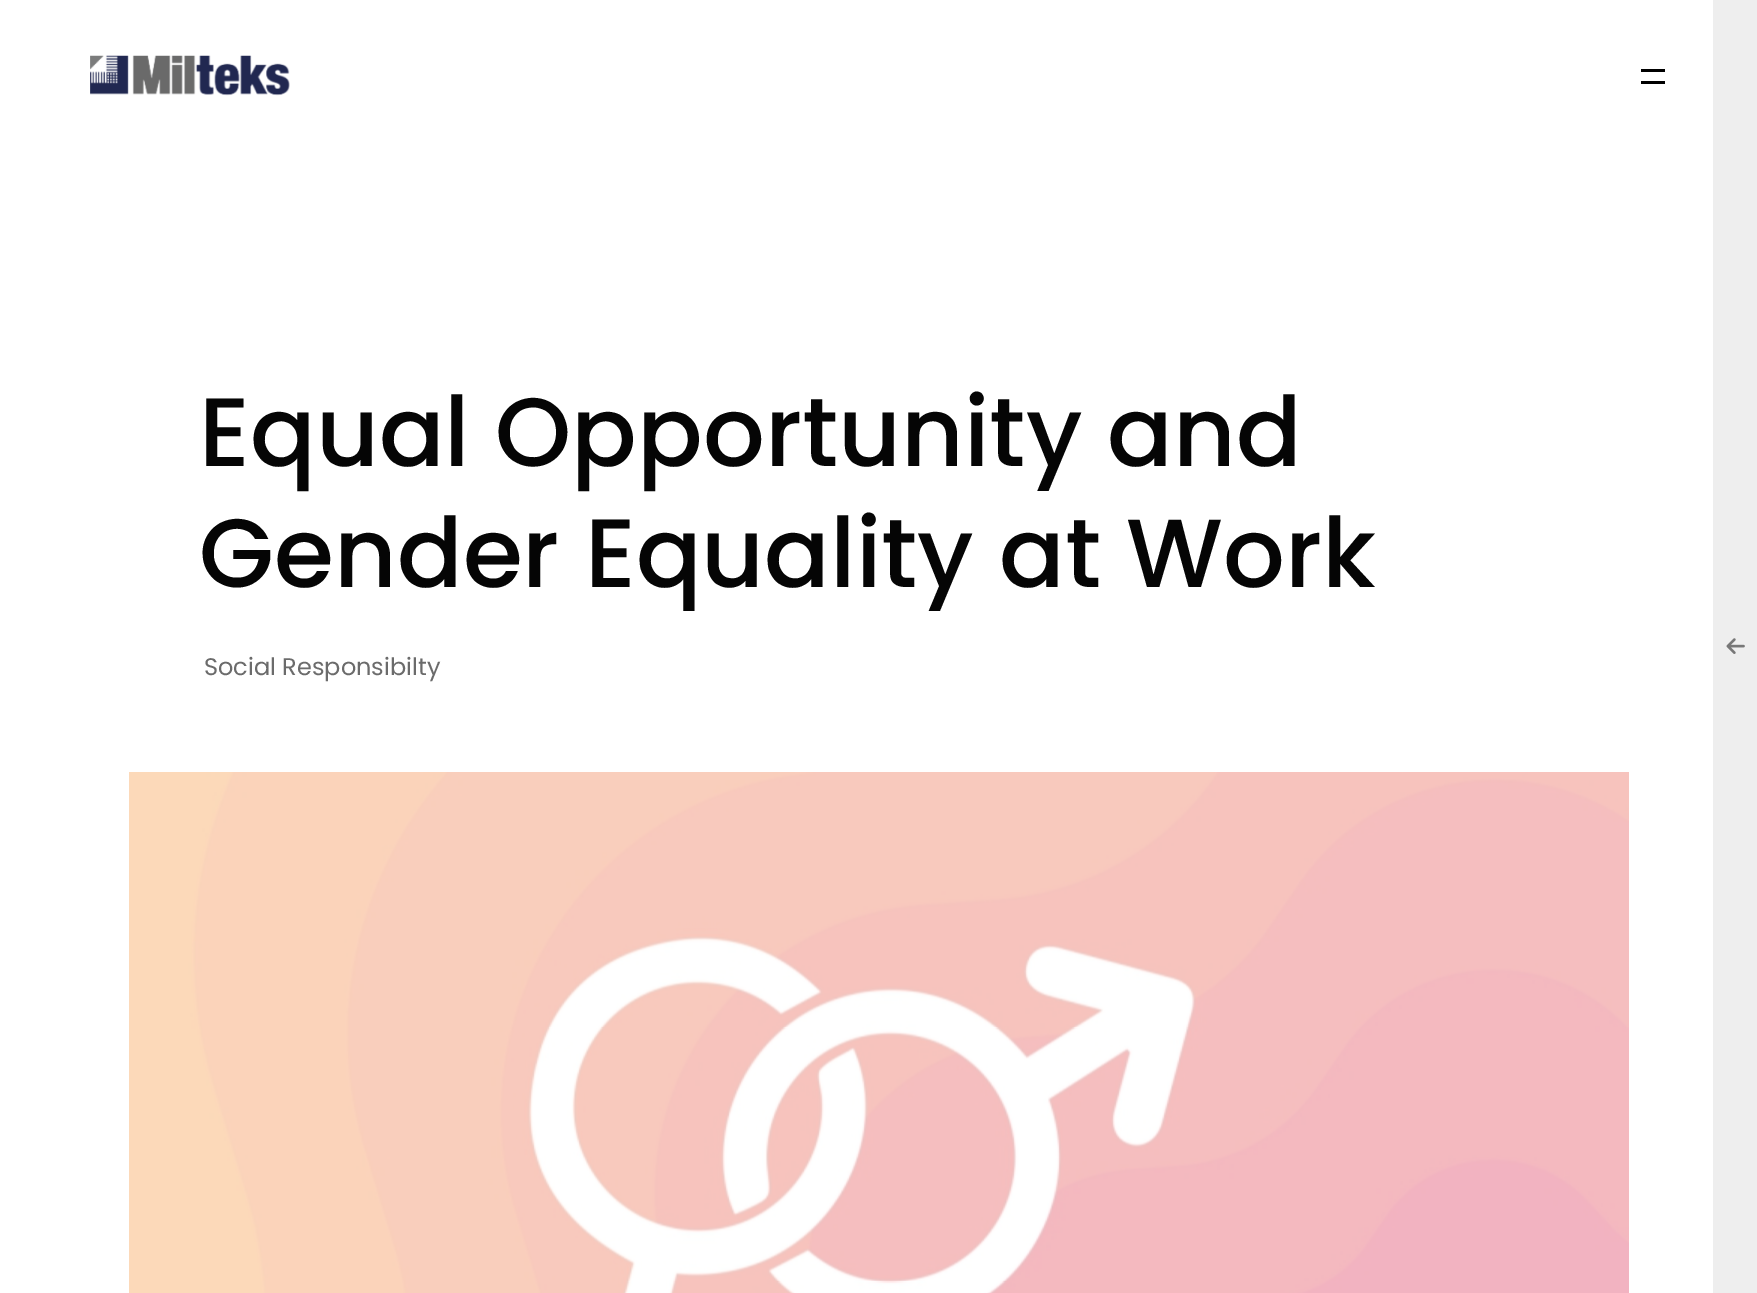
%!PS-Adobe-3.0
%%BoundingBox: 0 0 1757 1293
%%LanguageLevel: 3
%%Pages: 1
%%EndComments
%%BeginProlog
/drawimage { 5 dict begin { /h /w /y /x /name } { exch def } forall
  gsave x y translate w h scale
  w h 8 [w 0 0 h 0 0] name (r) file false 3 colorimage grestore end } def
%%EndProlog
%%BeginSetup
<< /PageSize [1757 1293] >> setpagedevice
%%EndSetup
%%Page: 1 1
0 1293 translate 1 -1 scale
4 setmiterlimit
1 setgray
0 0 1757 1293 rectfill
(images/1.raw) 90 55 200 41 drawimage
0 setgray
1641 69 24 3 rectfill
1641 81 24 3 rectfill
0.933 setgray
1713 0 44 1293 rectfill
(images/2.raw) 1726 638 19 16 drawimage
(images/3.raw) 129 772 1500 521 drawimage
/Poppins-Medium [97 0 0 -97 0 0] selectfont
0.02 setgray
199 466 moveto (Equal Opportunity and) show
gsave
198 387 1290 224 rectclip
199 587 moveto (Gender Equality at Work) show
grestore
/Poppins-Regular [24 0 0 -24 0 0] selectfont
0.42 setgray
204 675 moveto (Social Responsibilty) show
showpage
%%EOF
